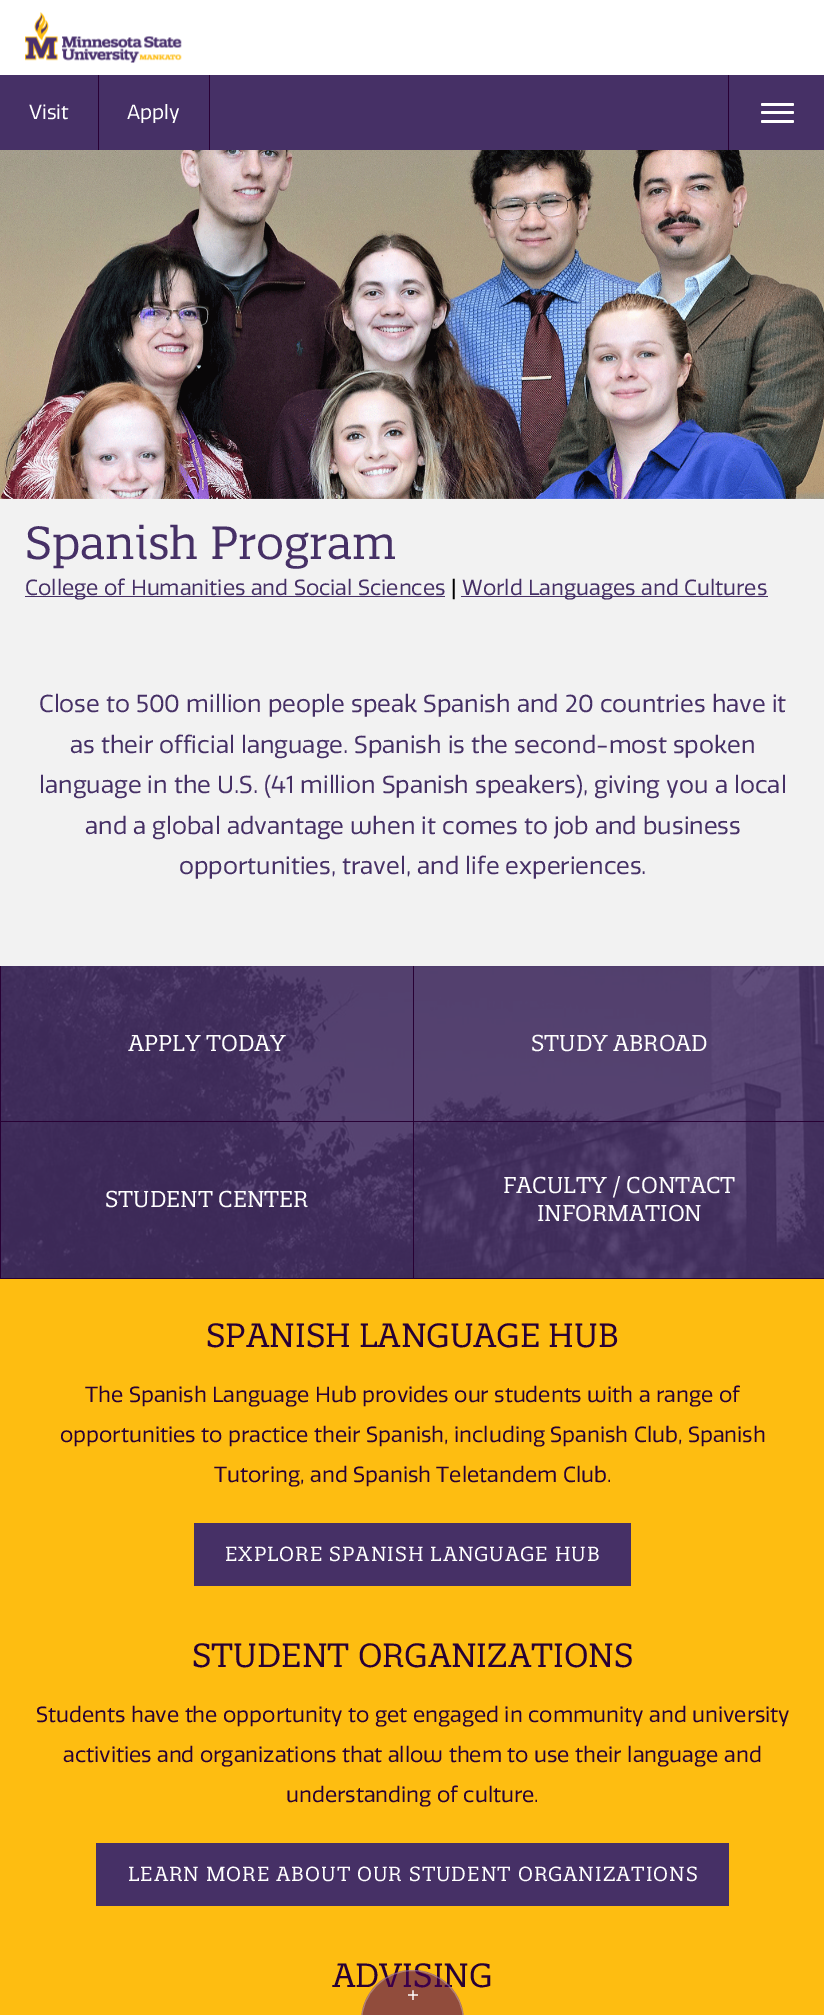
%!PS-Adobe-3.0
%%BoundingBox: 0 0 824 2015
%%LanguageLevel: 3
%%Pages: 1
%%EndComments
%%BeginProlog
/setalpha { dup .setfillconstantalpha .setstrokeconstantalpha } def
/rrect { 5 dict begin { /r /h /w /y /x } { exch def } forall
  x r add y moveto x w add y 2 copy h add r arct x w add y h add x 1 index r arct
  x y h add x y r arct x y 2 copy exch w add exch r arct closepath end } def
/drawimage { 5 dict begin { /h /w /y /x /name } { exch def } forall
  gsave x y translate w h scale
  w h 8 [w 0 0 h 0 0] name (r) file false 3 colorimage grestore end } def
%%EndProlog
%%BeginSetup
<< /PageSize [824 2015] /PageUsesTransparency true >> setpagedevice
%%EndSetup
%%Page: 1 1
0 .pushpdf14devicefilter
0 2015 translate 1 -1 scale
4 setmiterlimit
1 setgray
0 0 824 2015 rectfill
(images/1.raw) 25 12 157 51 drawimage
0.275 0.188 0.4 setrgbcolor
0 75 824 75 rectfill
0.157 0 0.204 setrgbcolor
98 75 1 75 rectfill
209 75 1 75 rectfill
728 75 1 75 rectfill
1 setgray
761 103 33 3 1.5 rrect fill
761 111 33 3 1.5 rrect fill
761 120 33 3 1.5 rrect fill
0.949 setgray
0 498 824 468 rectfill
(images/2.raw) 0 150 824 349 drawimage
0.275 0.188 0.4 setrgbcolor
25 596 420 1 rectfill
461 596 307 1 rectfill
(images/3.raw) 1 966 823 312 drawimage
0.157 0 0.204 setrgbcolor
0 1121 824 1 rectfill
0 966 1 157 rectfill
413 966 1 157 rectfill
0 1278 824 1 rectfill
0 1123 1 156 rectfill
413 1123 1 156 rectfill
0.996 0.741 0.067 setrgbcolor
0 1279 824 736 rectfill
0.275 0.188 0.4 setrgbcolor
194 1523 437 63 rectfill
96 1843 633 63 rectfill
/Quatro-Regular [19.8 0 0 -19.8 0 0] selectfont
1 setgray
29 119 moveto (Visit) show
127 119 moveto (Apply) show
/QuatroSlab-Regular [45 0 0 -45 0 0] selectfont
0.275 0.188 0.4 setrgbcolor
25 559 moveto (Spanish Program) show
/Quatro-Regular [21.25 0 0 -21.25 0 0] selectfont
25 595 moveto (College of Humanities and Social Sciences) show
0 setgray
451 595 moveto (|) show
0.275 0.188 0.4 setrgbcolor
462 595 moveto (World Languages and Cultures) show
/Quatro-Regular [23.8 0 0 -23.8 0 0] selectfont
39 712 moveto (Close to 500 million people speak Spanish and 20 countries have it) show
70 753 moveto (as their official language. Spanish is the second-most spoken) show
39 793 moveto (language in the U.S. \(41 million Spanish speakers\), giving you a local) show
85 834 moveto (and a global advantage when it comes to job and business) show
179 874 moveto (opportunities, travel, and life experiences.) show
/QuatroSlab-Regular [22.25 0 0 -22.25 0 0] selectfont
1 setgray
128 1051 moveto (APPLY TODAY) show
531 1051 moveto (STUDY ABROAD) show
105 1207 moveto (STUDENT CENTER) show
503 1193 moveto (FACULTY / CONTACT) show
537 1221 moveto (INFORMATION) show
/QuatroSlab-Regular [32.5 0 0 -32.5 0 0] selectfont
0.157 0 0.204 setrgbcolor
206 1347 moveto (SPANISH LANGUAGE HUB) show
/Quatro-Regular [21.25 0 0 -21.25 0 0] selectfont
85 1402 moveto (The Spanish Language Hub provides our students with a range of) show
60 1442 moveto (opportunities to practice their Spanish, including Spanish Club, Spanish) show
214 1482 moveto (Tutoring, and Spanish Teletandem Club.) show
/QuatroSlab-Regular [19.8 0 0 -19.8 0 0] selectfont
1 setgray
225 1561 moveto 1 0 (EXPLORE SPANISH LANGUAGE HUB) ashow
/QuatroSlab-Regular [32.5 0 0 -32.5 0 0] selectfont
0.157 0 0.204 setrgbcolor
192 1667 moveto (STUDENT ORGANIZATIONS) show
/Quatro-Regular [21.25 0 0 -21.25 0 0] selectfont
36 1722 moveto (Students have the opportunity to get engaged in community and university) show
63 1762 moveto (activities and organizations that allow them to use their language and) show
286 1802 moveto (understanding of culture.) show
/QuatroSlab-Regular [19.8 0 0 -19.8 0 0] selectfont
1 setgray
128 1881 moveto 1 0 (LEARN MORE ABOUT OUR STUDENT ORGANIZATIONS) ashow
/QuatroSlab-Regular [32.5 0 0 -32.5 0 0] selectfont
0.157 0 0.204 setrgbcolor
332 1987 moveto (ADVISING) show
0.6 setalpha
0.282 0 0.349 setrgbcolor
newpath 412.5 1970 moveto 441 1970 464 1993 464 2021.5 curveto 464 2015 lineto 361 2015 lineto 361 2021.5 lineto 361 1993 384 1970 412.5 1970 curveto closepath fill
0.3 setalpha
1 setgray
361.5 1970.5 102 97 51 rrect stroke
/Quatro-Regular [21.25 0 0 -21.25 0 0] selectfont
1 setalpha
407 2001 moveto (+) show
.poppdf14devicefilter showpage
%%EOF
